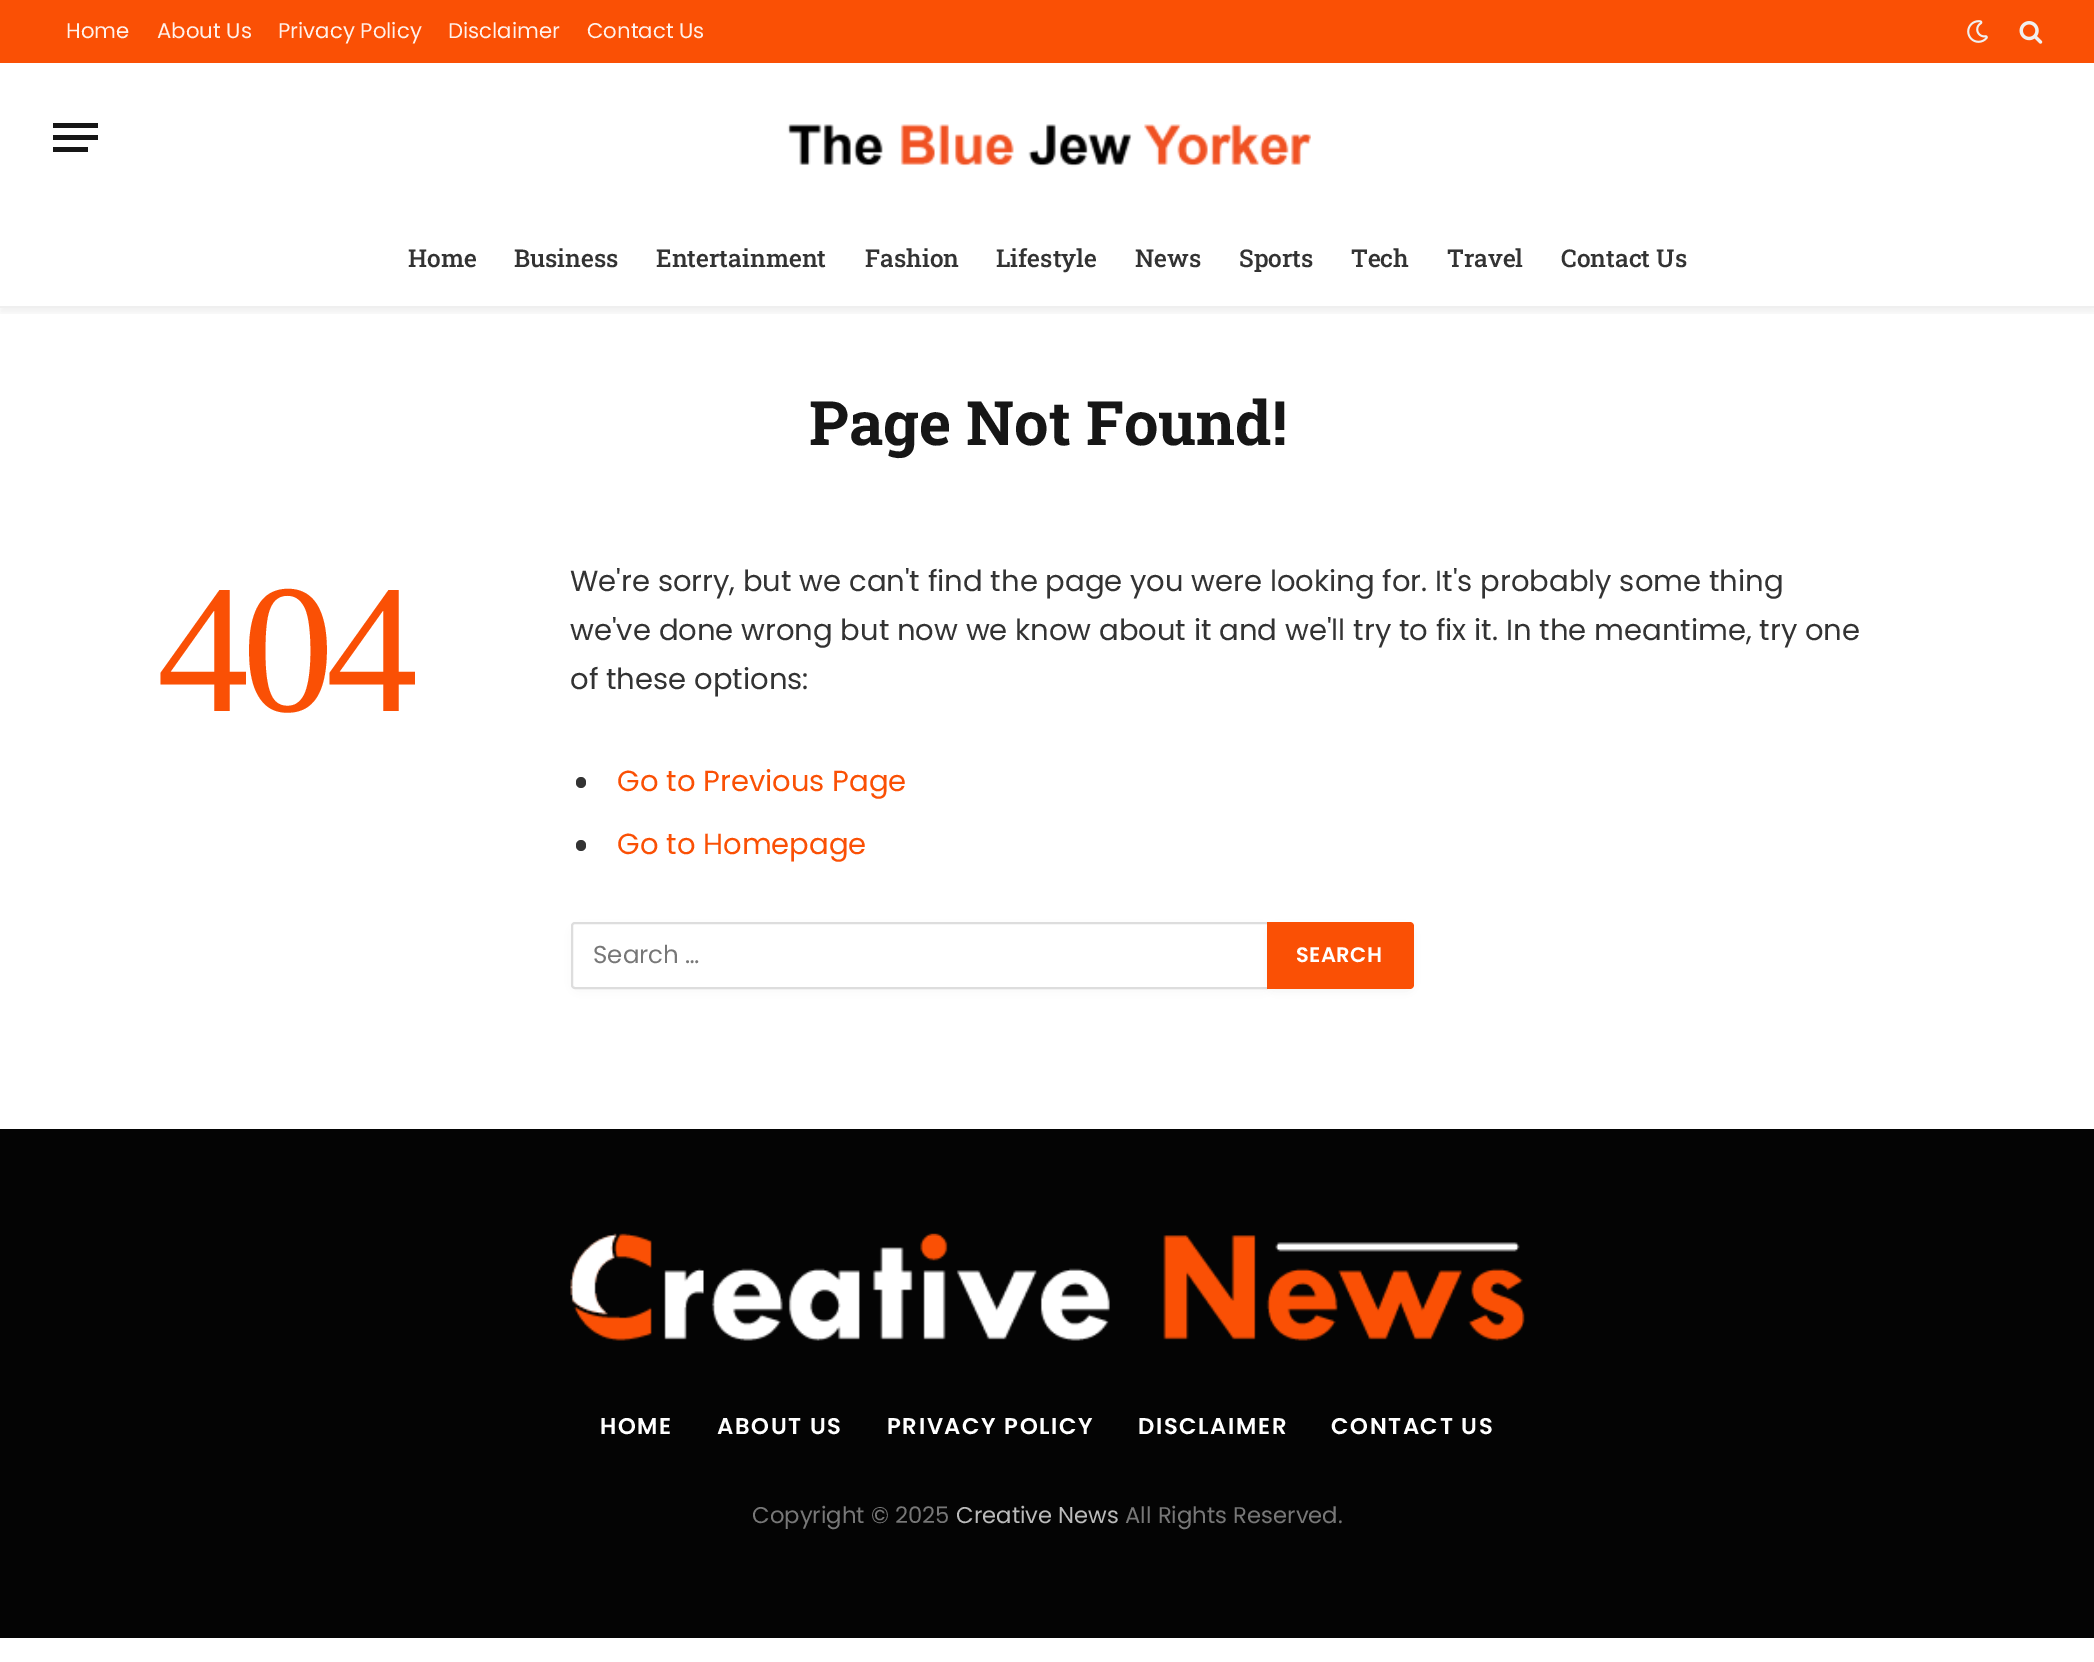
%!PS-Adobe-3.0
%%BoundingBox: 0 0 2094 1662
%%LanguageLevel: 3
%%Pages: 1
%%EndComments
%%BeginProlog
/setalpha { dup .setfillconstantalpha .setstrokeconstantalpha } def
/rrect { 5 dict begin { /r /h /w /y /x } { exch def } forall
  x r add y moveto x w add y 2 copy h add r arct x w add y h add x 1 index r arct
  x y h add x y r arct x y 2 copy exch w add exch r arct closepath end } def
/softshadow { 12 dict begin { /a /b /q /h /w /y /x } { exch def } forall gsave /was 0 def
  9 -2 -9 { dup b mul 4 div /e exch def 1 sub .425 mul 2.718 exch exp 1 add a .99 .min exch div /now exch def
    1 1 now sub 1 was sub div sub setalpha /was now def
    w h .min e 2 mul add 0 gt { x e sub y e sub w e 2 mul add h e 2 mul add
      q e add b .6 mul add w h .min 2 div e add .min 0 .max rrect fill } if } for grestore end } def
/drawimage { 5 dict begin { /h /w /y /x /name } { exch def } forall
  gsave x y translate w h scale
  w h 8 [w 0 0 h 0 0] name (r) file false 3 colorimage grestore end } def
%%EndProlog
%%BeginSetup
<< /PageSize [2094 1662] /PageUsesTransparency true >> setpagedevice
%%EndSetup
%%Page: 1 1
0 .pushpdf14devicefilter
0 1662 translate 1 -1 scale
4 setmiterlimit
1 setgray
0 0 2094 1662 rectfill
gsave
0 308 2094 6 rectclip
0 setgray
0 5 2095 308 0 3.5 0.05 softshadow
grestore
0.98 0.314 0.02 setrgbcolor
0 0 2094 63 rectfill
(images/1.raw) 1967 20 21 23 drawimage
(images/2.raw) 2019 21 24 23 drawimage
0.086 setgray
53 147 35 5 rectfill
53 123 45 5 rectfill
53 135 45 5 rectfill
(images/3.raw) 787 124 524 43 drawimage
0.937 setgray
0 306 2094 2 rectfill
0.2 setgray
576 777 10 11 5 rrect fill
576 840 10 11 5 rrect fill
0 setgray
578 933 686 52 0 6 0.1 softshadow
1 setgray
572 923 698 65 3 rrect gsave fill grestore
0.867 setgray
2 setlinewidth
stroke
0 setgray
1274 933 133 52 0 6 0.16 softshadow
0.98 0.314 0.02 setrgbcolor
newpath 1267 922 moveto 1410 922 lineto 1412 922 1414 924 1414 926 curveto 1414 985 lineto 1414 987 1412 989 1410 989 curveto 1267 989 lineto closepath fill
0.016 setgray
0 1129 2094 509 rectfill
(images/4.raw) 570 1233 955 108 drawimage
/Poppins-Regular [21.25 0 0 -21.25 0 0] selectfont
1 0.945 0.922 setrgbcolor
66 38 moveto (Home) show
157 38 moveto (About Us) show
278 38 moveto (Privacy Policy) show
448 38 moveto (Disclaimer) show
587 38 moveto (Contact Us) show
/RobotoSlab-Medium [24.5 0 0 -24.5 0 0] selectfont
0.2 setgray
408 267 moveto (Home) show
514 267 moveto (Business) show
656 267 moveto (Entertainment) show
865 267 moveto (Fashion) show
996 267 moveto (Lifestyle) show
1135 267 moveto (News) show
1239 267 moveto (Sports) show
1351 267 moveto (Tech) show
1447 267 moveto (Travel) show
1561 267 moveto (Contact Us) show
/RobotoSlab-Bold [61.25 0 0 -61.25 0 0] selectfont
0.086 setgray
809 445 moveto (Page Not Found!) show
/LiberationSerif-Regular [184 0 0 -184 0 0] selectfont
0.98 0.314 0.02 setrgbcolor
157 711 moveto -7.5 0 (404) ashow
/Poppins-Regular [29.05 0 0 -29.05 0 0] selectfont
0.2 setgray
570 591 moveto (We're sorry, but we can't find the page you were looking for. It's probably some thing) show
570 640 moveto (we've done wrong but now we know about it and we'll try to fix it. In the meantime, try one) show
570 689 moveto (of these options:) show
0.98 0.314 0.02 setrgbcolor
617 791 moveto (Go to Previous Page) show
617 854 moveto (Go to Homepage) show
/Poppins-Regular [24.5 0 0 -24.5 0 0] selectfont
0.467 setgray
593 963 moveto (Search …) show
/Poppins-SemiBold [21 0 0 -21 0 0] selectfont
1 setgray
1296 962 moveto 0.5 0 (SEARCH) ashow
/Poppins-SemiBold [22.75 0 0 -22.75 0 0] selectfont
600 1434 moveto 1.6 0 (HOME) ashow
717 1434 moveto 1.6 0 (ABOUT US) ashow
887 1434 moveto 1.6 0 (PRIVACY POLICY) ashow
1138 1434 moveto 1.6 0 (DISCLAIMER) ashow
1331 1434 moveto 1.6 0 (CONTACT US) ashow
/Poppins-Regular [22.75 0 0 -22.75 0 0] selectfont
0.467 setgray
752 1523 moveto (Copyright © 2025) show
0.733 setgray
956 1523 moveto (Creative News) show
0.467 setgray
1125 1523 moveto (All Rights Reserved.) show
.poppdf14devicefilter showpage
%%EOF
